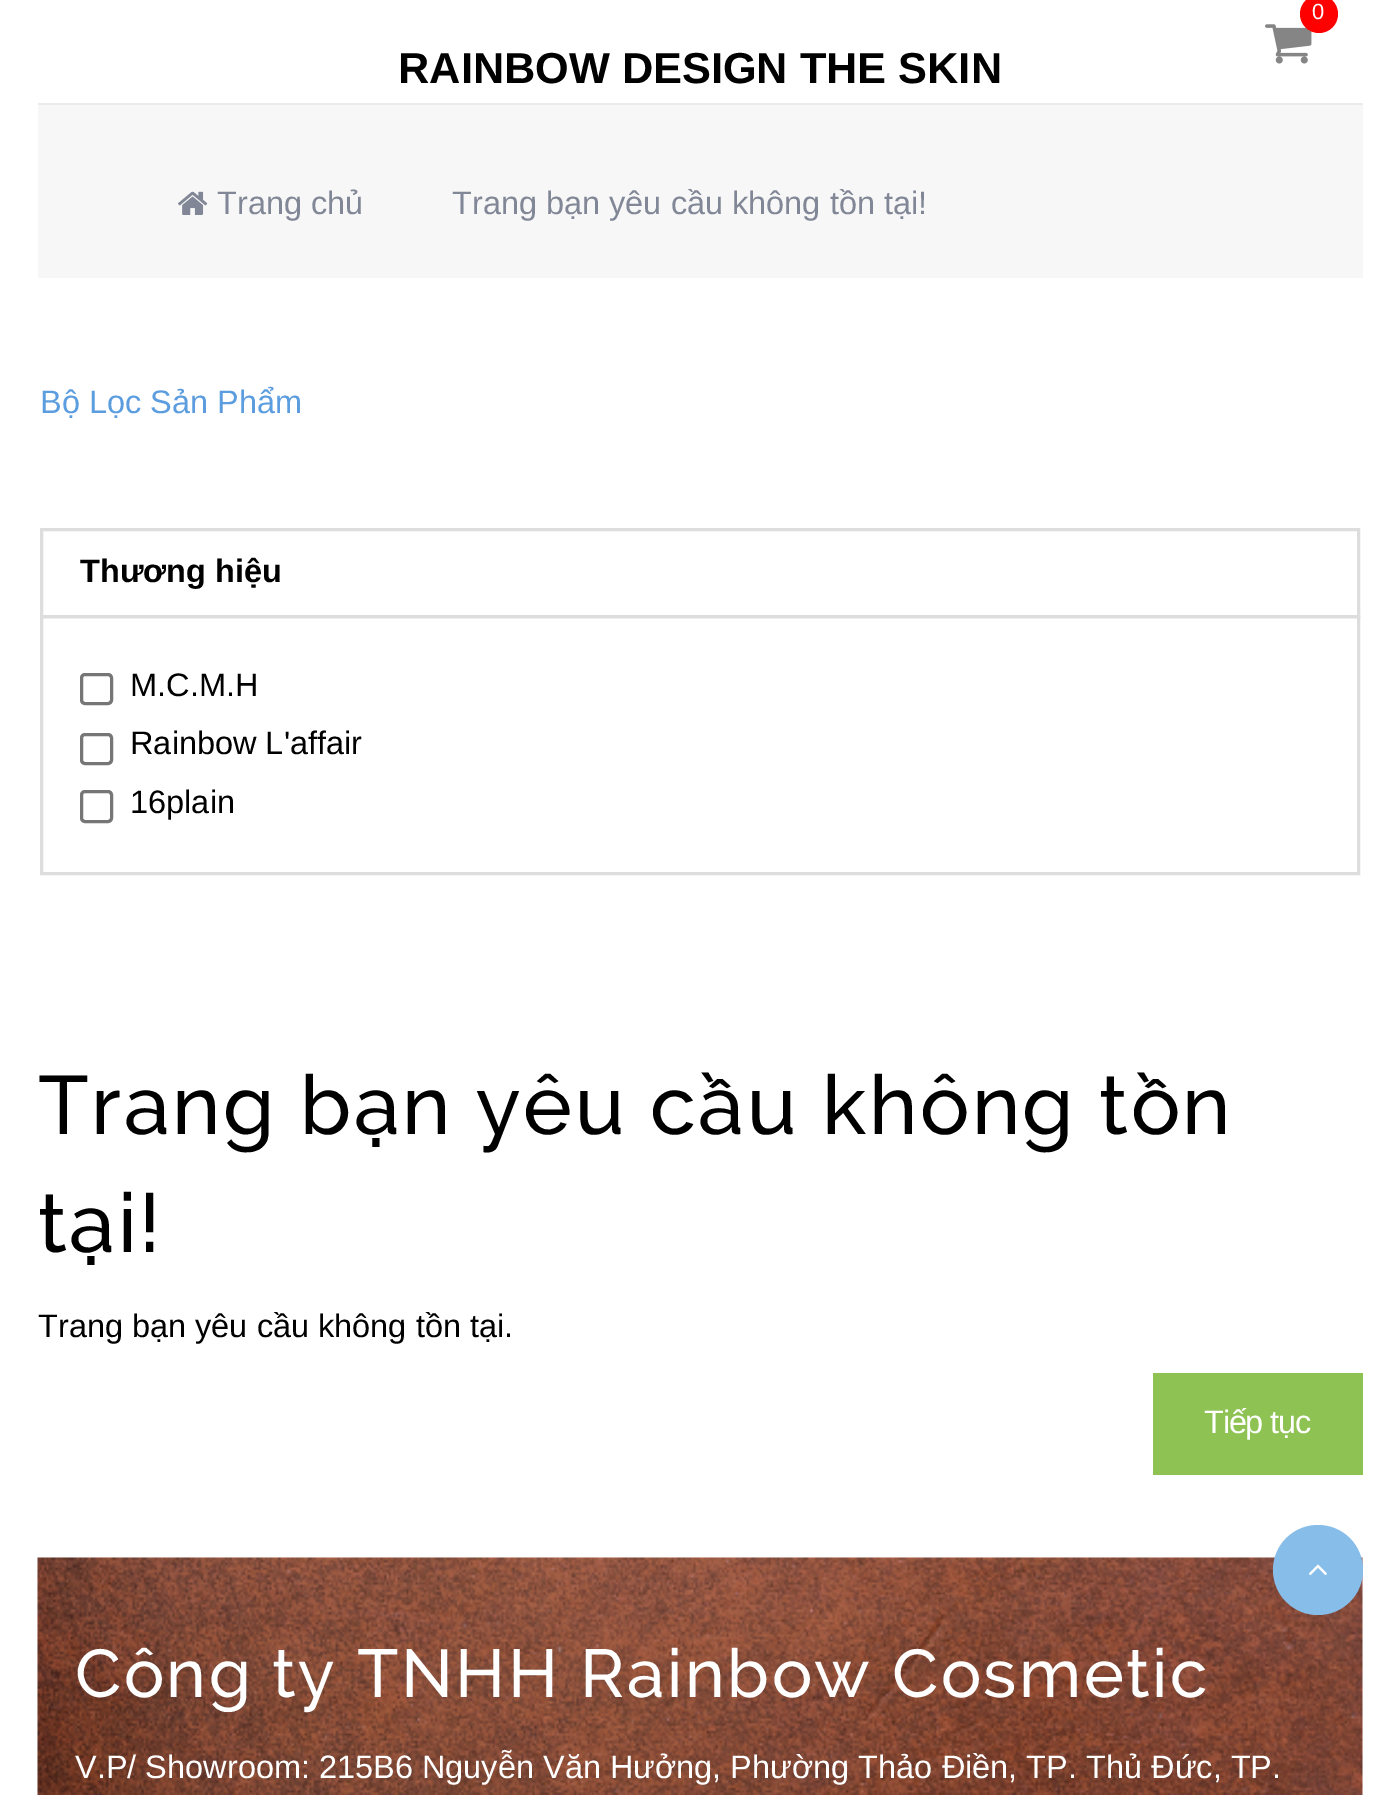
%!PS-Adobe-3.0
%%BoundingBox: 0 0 1400 1795
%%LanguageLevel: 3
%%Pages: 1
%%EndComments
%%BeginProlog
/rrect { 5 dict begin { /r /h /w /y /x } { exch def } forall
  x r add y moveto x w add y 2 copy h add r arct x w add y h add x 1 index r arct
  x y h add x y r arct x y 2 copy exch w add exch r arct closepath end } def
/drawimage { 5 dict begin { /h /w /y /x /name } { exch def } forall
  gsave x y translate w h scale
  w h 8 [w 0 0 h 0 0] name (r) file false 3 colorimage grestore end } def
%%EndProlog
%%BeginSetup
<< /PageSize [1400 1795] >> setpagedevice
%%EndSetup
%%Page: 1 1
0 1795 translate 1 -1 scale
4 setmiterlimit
1 setgray
0 0 1400 1795 rectfill
0.922 setgray
38 103 1325 2 rectfill
(images/1.raw) 1265 24 47 40 drawimage
1 0 0 setrgbcolor
newpath 1319 14 19 0 360 arc closepath fill
0.969 setgray
38 105 1325 173 rectfill
(images/2.raw) 178 191 30 24 drawimage
0.867 setgray
3 setlinewidth
41.5 529.5 1317 87 rectstroke
41.5 616.5 1317 257 rectstroke
0.463 setgray
81.5 674.5 30 29 3.5 rrect stroke
81.5 734.5 30 29 3.5 rrect stroke
81.5 791.5 30 30 3.5 rrect stroke
0.557 0.765 0.329 setrgbcolor
1153 1373 210 102 rectfill
(images/4.raw) 37 1557 1326 238 drawimage
0.525 0.741 0.914 setrgbcolor
newpath 1318 1570 45 0 360 arc closepath fill
(images/3.raw) 1309 1564 18 12 drawimage
/LiberationSans-Regular [22 0 0 -22 0 0] selectfont
1 setgray
1312 19 moveto (0) show
/LiberationSans-Bold [43.3 0 0 -43.3 0 0] selectfont
0 setgray
398 83 moveto (RAINBOW DESIGN THE SKIN) show
/LiberationSans-Regular [32.5 0 0 -32.5 0 0] selectfont
0.506 0.529 0.588 setrgbcolor
217 214 moveto (Trang chủ) show
452 214 moveto (Trang bạn yêu cầu không tồn tại!) show
0.361 0.616 0.875 setrgbcolor
40 413 moveto (Bộ Lọc Sản Phẩm) show
/LiberationSans-Bold [32.5 0 0 -32.5 0 0] selectfont
0 setgray
80 582 moveto (Thương hiệu) show
/LiberationSans-Regular [32.5 0 0 -32.5 0 0] selectfont
130 696 moveto (M.C.M.H) show
130 754 moveto (Rainbow L'affair) show
130 813 moveto (16plain) show
/Raleway-Medium [82.5 0 0 -82.5 0 0] selectfont
38 1134 moveto 2.5 0 (Trang bạn yêu cầu không tồn) ashow
38 1252 moveto 2.5 0 (tại!) ashow
/LiberationSans-Regular [32.5 0 0 -32.5 0 0] selectfont
38 1337 moveto (Trang bạn yêu cầu không tồn tại.) show
1 setgray
1204 1433 moveto -1.25 0 (Tiếp tục) ashow
/Raleway-Medium [67.5 0 0 -67.5 0 0] selectfont
75 1697 moveto 2.5 0 (Công ty TNHH Rainbow Cosmetic) ashow
/LiberationSans-Regular [32.5 0 0 -32.5 0 0] selectfont
75 1778 moveto (V.P/ Showroom: 215B6 Nguyễn Văn Hưởng, Phường Thảo Điền, TP. Thủ Đức, TP.) show
showpage
%%EOF
